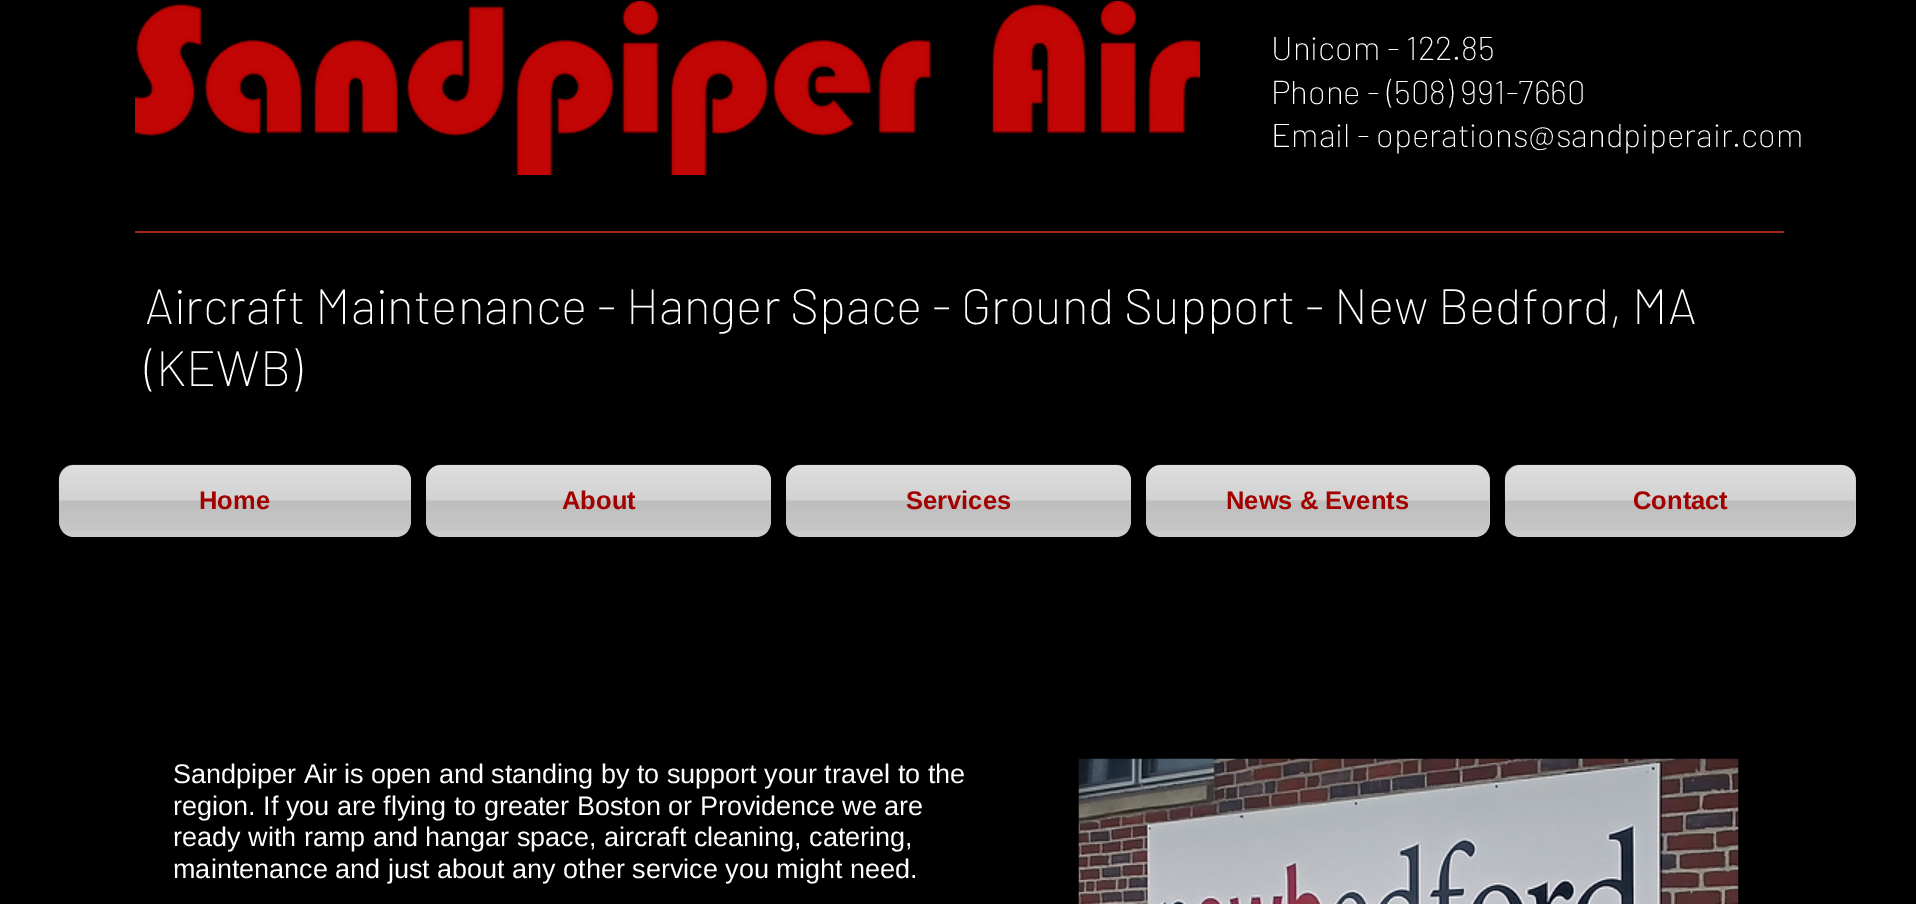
%!PS-Adobe-3.0
%%BoundingBox: 0 0 1916 904
%%LanguageLevel: 3
%%Pages: 1
%%EndComments
%%BeginProlog
/rrect { 5 dict begin { /r /h /w /y /x } { exch def } forall
  x r add y moveto x w add y 2 copy h add r arct x w add y h add x 1 index r arct
  x y h add x y r arct x y 2 copy exch w add exch r arct closepath end } def
/drawimage { 5 dict begin { /h /w /y /x /name } { exch def } forall
  gsave x y translate w h scale
  w h 8 [w 0 0 h 0 0] name (r) file false 3 colorimage grestore end } def
%%EndProlog
%%BeginSetup
<< /PageSize [1916 904] >> setpagedevice
%%EndSetup
%%Page: 1 1
0 904 translate 1 -1 scale
4 setmiterlimit
0 setgray
0 0 1916 904 rectfill
(images/1.raw) 135 1 1065 174 drawimage
0.62 0.149 0.078 setrgbcolor
135 231 1649 2 rectfill
0.8 setgray
59 465 352 72 15 rrect fill
(images/2.raw) 58 464 353 67 drawimage
426 465 345 72 15 rrect fill
(images/3.raw) 426 464 345 67 drawimage
786 465 345 72 15 rrect fill
(images/4.raw) 786 464 345 67 drawimage
1146 465 344 72 15 rrect fill
(images/5.raw) 1146 464 344 67 drawimage
1505 465 351 72 15 rrect fill
(images/6.raw) 1504 464 352 67 drawimage
(images/7.raw) 1078 758 661 146 drawimage
/Barlow-ExtraLight [33 0 0 -33 0 0] selectfont
1 setgray
1271 60 moveto (Unicom - 122.85) show
1271 104 moveto (Phone - \(508\) 991-7660) show
1271 147 moveto (Email - operations@sandpiperair.com) show
/Barlow-ExtraLight [49.5 0 0 -49.5 0 0] selectfont
145 324 moveto (Aircraft Maintenance - Hanger Space - Ground Support - New Bedford, MA) show
145 386 moveto (\(KEWB\)) show
/LiberationSans-Bold [25.5 0 0 -25.5 0 0] selectfont
0.639 0 0 setrgbcolor
199 509 moveto (Home) show
562 509 moveto (About) show
906 509 moveto (Services) show
1226 509 moveto (News & Events) show
1633 509 moveto (Contact) show
/LiberationSans-Regular [27 0 0 -27 0 0] selectfont
1 setgray
173 783 moveto (Sandpiper Air is open and standing by to support your travel to the) show
173 815 moveto (region. If you are flying to greater Boston or Providence we are) show
173 846 moveto (ready with ramp and hangar space, aircraft cleaning, catering,) show
173 878 moveto (maintenance and just about any other service you might need.) show
showpage
%%EOF
